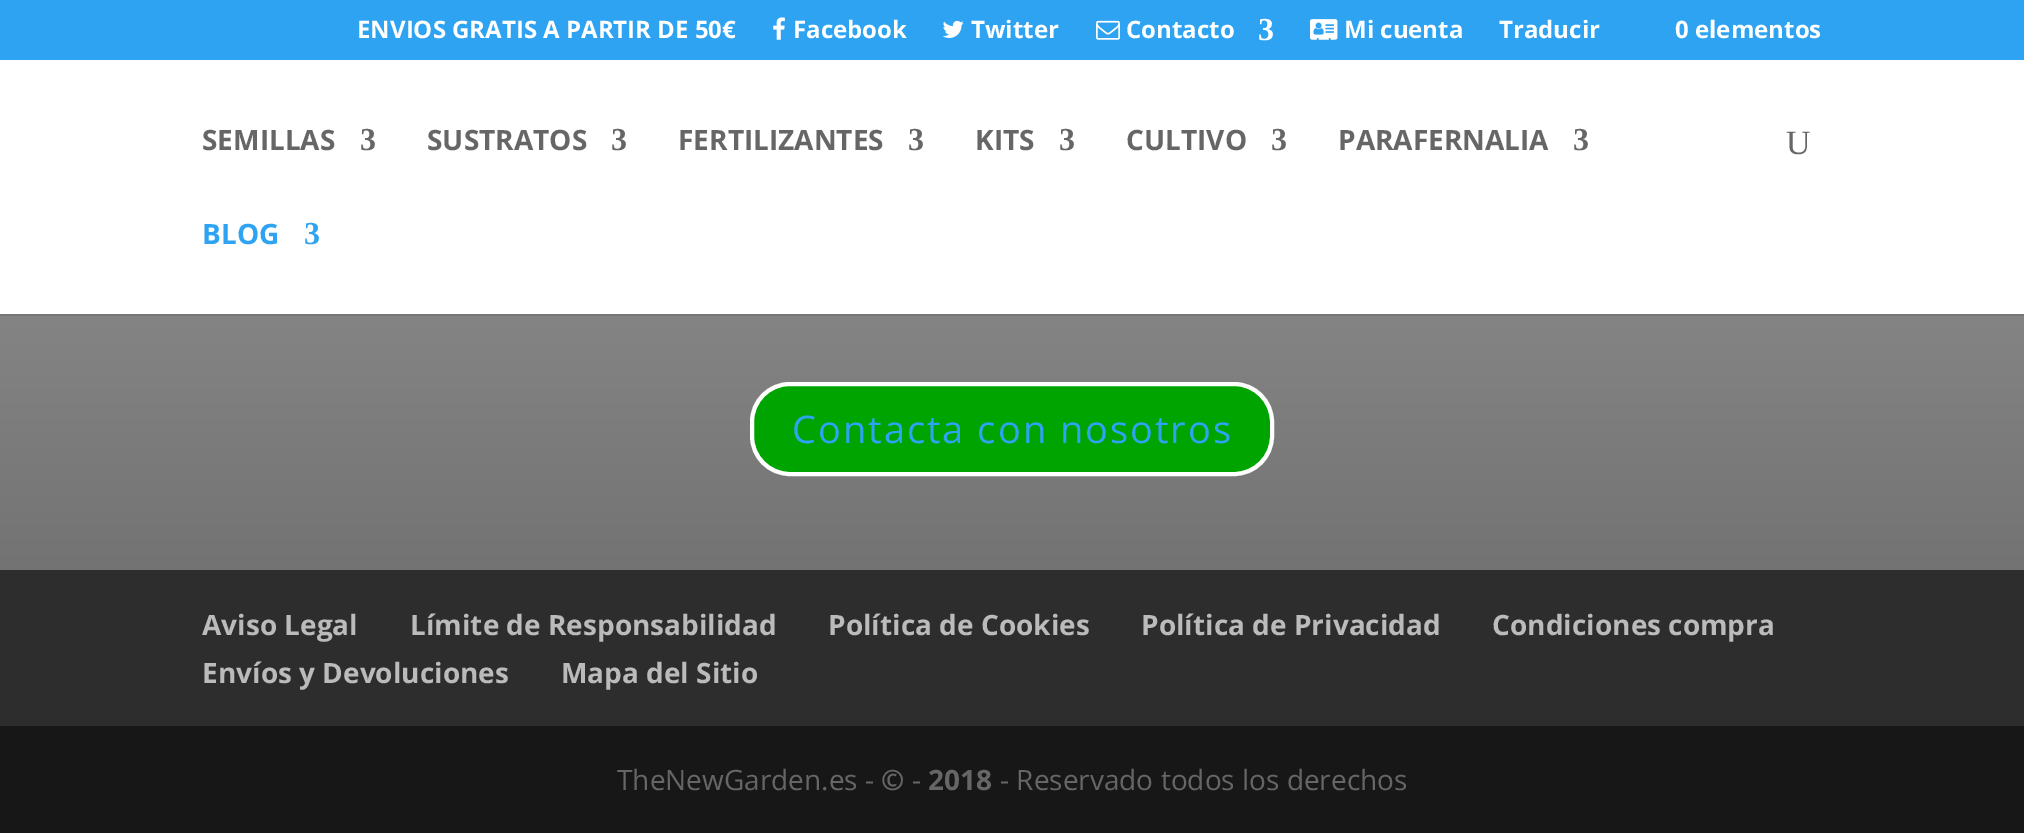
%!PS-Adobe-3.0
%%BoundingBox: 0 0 2024 833
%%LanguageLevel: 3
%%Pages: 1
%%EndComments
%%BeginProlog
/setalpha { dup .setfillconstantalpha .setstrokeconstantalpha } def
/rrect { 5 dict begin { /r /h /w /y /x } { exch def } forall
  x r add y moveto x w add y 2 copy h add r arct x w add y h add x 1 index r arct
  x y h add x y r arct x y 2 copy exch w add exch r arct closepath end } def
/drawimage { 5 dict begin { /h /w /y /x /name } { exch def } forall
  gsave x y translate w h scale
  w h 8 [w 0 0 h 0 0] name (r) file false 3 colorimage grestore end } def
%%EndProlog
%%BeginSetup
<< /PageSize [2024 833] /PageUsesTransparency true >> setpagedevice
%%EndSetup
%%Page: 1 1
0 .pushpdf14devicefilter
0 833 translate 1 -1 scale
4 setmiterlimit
0.176 setgray
0 0 2024 833 rectfill
0.18 0.639 0.949 setrgbcolor
0 0 2024 60 rectfill
(images/1.raw) 773 17 12 23 drawimage
(images/2.raw) 942 20 22 18 drawimage
(images/3.raw) 1096 20 24 20 drawimage
(images/4.raw) 1310 19 28 21 drawimage
gsave newpath 0 314 moveto 2024 314 lineto 2024 570 lineto 0 570 lineto closepath clip newpath
<< /ShadingType 2 /ColorSpace /DeviceRGB /Coords [1012 130 1012 570] /Extend [true true] /Function << /FunctionType 3 /Domain [0 1] /Functions [<< /FunctionType 2 /Domain [0 1] /C0 [0.553 0.553 0.553] /C1 [0.553 0.553 0.553] /N 1 >> << /FunctionType 2 /Domain [0 1] /C0 [0.553 0.553 0.553] /C1 [0.451 0.451 0.451] /N 1 >>] /Bounds [0.1] /Encode [0 1 0 1] >> >> shfill grestore
0.1 setalpha
0 setgray
0 314 2024 2 rectfill
1 setalpha
1 setgray
0 60 2024 254 rectfill
0 0.643 0 setrgbcolor
752 384 520 90 38 rrect gsave fill grestore
1 setgray
4 setlinewidth
stroke
0.09 setgray
0 726 2024 107 rectfill
/OpenSans-Bold [24 0 0 -24 0 0] selectfont
1 setgray
357 38 moveto (ENVIOS GRATIS A PARTIR DE 50€) show
793 38 moveto (Facebook) show
971 38 moveto (Twitter) show
1126 38 moveto (Contacto) show
/LiberationSerif-Bold [32 0 0 -32 0 0] selectfont
1258 40 moveto (3) show
/OpenSans-Bold [24 0 0 -24 0 0] selectfont
1344 38 moveto (Mi cuenta) show
1499 38 moveto (Traducir) show
1675 38 moveto (0 elementos) show
/OpenSans-Bold [28 0 0 -28 0 0] selectfont
0.4 setgray
202 150 moveto (SEMILLAS) show
/LiberationSerif-Bold [32 0 0 -32 0 0] selectfont
360 150 moveto (3) show
/OpenSans-Bold [28 0 0 -28 0 0] selectfont
427 150 moveto (SUSTRATOS) show
/LiberationSerif-Bold [32 0 0 -32 0 0] selectfont
611 150 moveto (3) show
/OpenSans-Bold [28 0 0 -28 0 0] selectfont
678 150 moveto (FERTILIZANTES) show
/LiberationSerif-Bold [32 0 0 -32 0 0] selectfont
908 150 moveto (3) show
/OpenSans-Bold [28 0 0 -28 0 0] selectfont
975 150 moveto (KITS) show
/LiberationSerif-Bold [32 0 0 -32 0 0] selectfont
1059 150 moveto (3) show
/OpenSans-Bold [28 0 0 -28 0 0] selectfont
1126 150 moveto (CULTIVO) show
/LiberationSerif-Bold [32 0 0 -32 0 0] selectfont
1271 150 moveto (3) show
/OpenSans-Bold [28 0 0 -28 0 0] selectfont
1338 150 moveto (PARAFERNALIA) show
/LiberationSerif-Bold [32 0 0 -32 0 0] selectfont
1573 150 moveto (3) show
/OpenSans-Bold [28 0 0 -28 0 0] selectfont
0.18 0.639 0.949 setrgbcolor
202 244 moveto (BLOG) show
/LiberationSerif-Bold [32 0 0 -32 0 0] selectfont
304 244 moveto (3) show
/LiberationSerif-Regular [34 0 0 -34 0 0] selectfont
0.4 setgray
1786 154 moveto (U) show
/OpenSans-Regular [38 0 0 -38 0 0] selectfont
0.18 0.639 0.949 setrgbcolor
792 443 moveto 2 0 (Contacta con nosotros) ashow
/OpenSans-Bold [28 0 0 -28 0 0] selectfont
0.733 setgray
202 635 moveto (Aviso Legal) show
410 635 moveto (Límite de Responsabilidad) show
828 635 moveto (Política de Cookies) show
1141 635 moveto (Política de Privacidad) show
1492 635 moveto (Condiciones compra) show
202 683 moveto (Envíos y Devoluciones) show
561 683 moveto (Mapa del Sitio) show
/OpenSans-Regular [28 0 0 -28 0 0] selectfont
0.4 setgray
617 790 moveto (TheNewGarden.es -) show
/OpenSans-Bold [28 0 0 -28 0 0] selectfont
881 790 moveto (©) show
/OpenSans-Regular [28 0 0 -28 0 0] selectfont
912 790 moveto (-) show
/OpenSans-Bold [28 0 0 -28 0 0] selectfont
928 790 moveto (2018) show
/OpenSans-Regular [28 0 0 -28 0 0] selectfont
1000 790 moveto (- Reservado todos los derechos) show
.poppdf14devicefilter showpage
%%EOF
